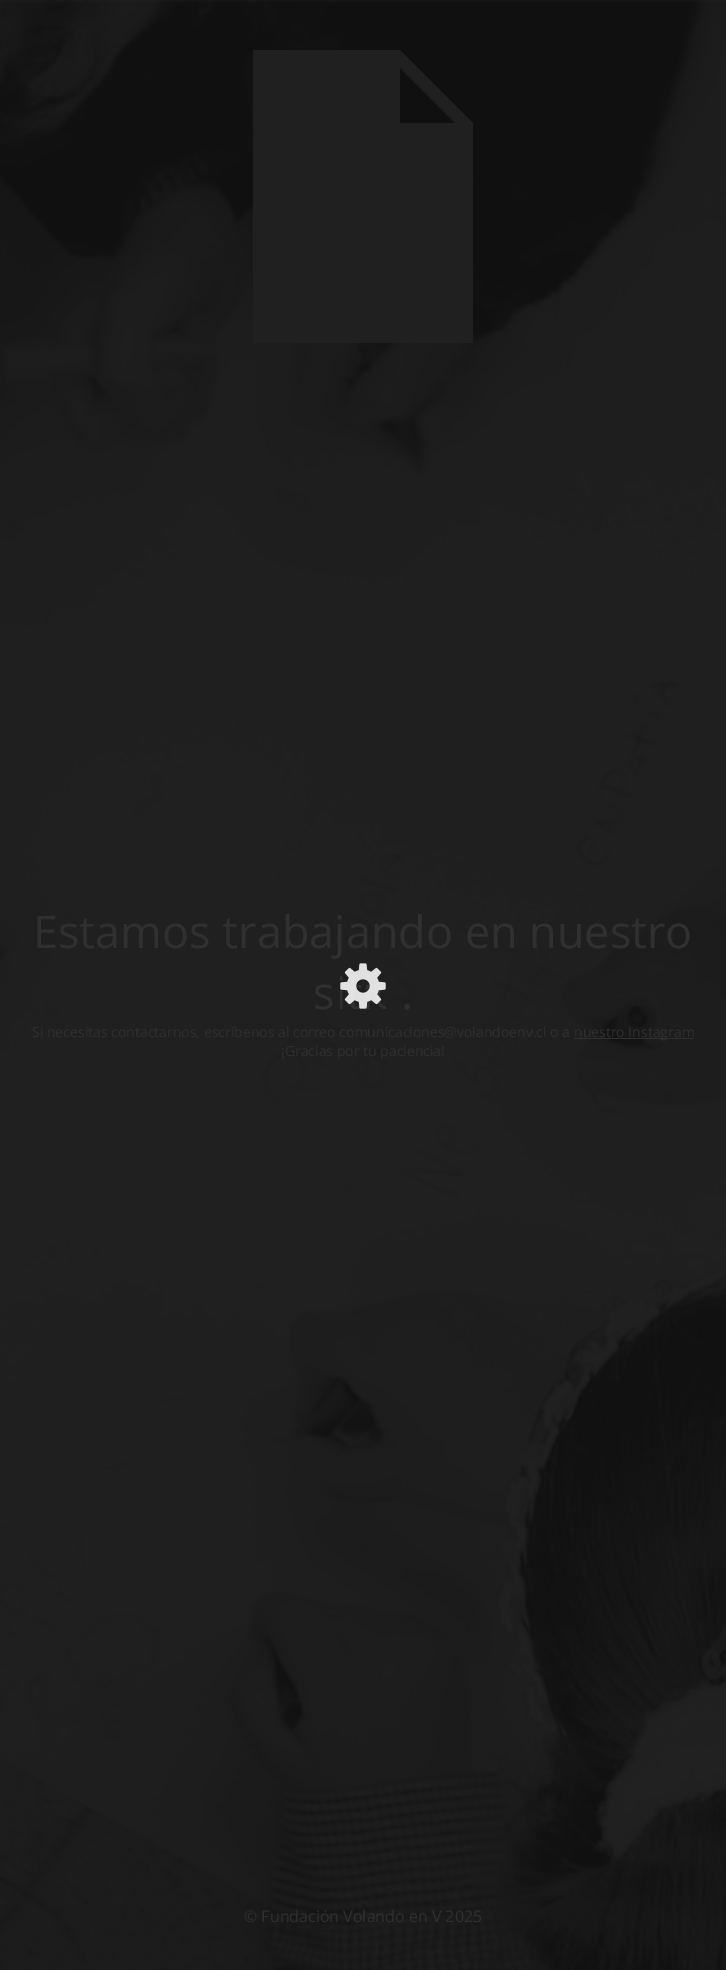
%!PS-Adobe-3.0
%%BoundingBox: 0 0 726 1970
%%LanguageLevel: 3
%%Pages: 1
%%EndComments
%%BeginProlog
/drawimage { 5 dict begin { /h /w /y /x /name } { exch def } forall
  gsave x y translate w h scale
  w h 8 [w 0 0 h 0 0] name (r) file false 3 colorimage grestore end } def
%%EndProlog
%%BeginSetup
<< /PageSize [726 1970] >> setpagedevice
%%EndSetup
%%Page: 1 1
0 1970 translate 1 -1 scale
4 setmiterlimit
1 setgray
0 0 726 1970 rectfill
(images/1.raw) 0 0 726 1970 drawimage
0.125 setgray
newpath 400 50 moveto 253 50 lineto 253 343 lineto 473 343 lineto 473 123 lineto closepath 400 123 moveto 400 68 lineto 455 123 lineto closepath fill
0.188 setgray
574 1038 120 1 rectfill
(images/2.raw) 340 963 46 46 drawimage
/OpenSans-Regular [45 0 0 -45 0 0] selectfont
33 948 moveto (Estamos trabajando en nuestro) show
313 1009 moveto (s) show
401 1009 moveto (.) show
/OpenSans-Regular [14 0 0 -14 0 0] selectfont
32 1037 moveto (Si necesitas contactarnos, escríbenos al correo comunicaciones@volandoenv.cl o a) show
574 1037 moveto (nuestro Instagram) show
281 1056 moveto (¡Gracias por tu paciencia!) show
/OpenSans-Regular [16 0 0 -16 0 0] selectfont
244 1922 moveto (© Fundación Volando en V 2025) show
showpage
%%EOF
